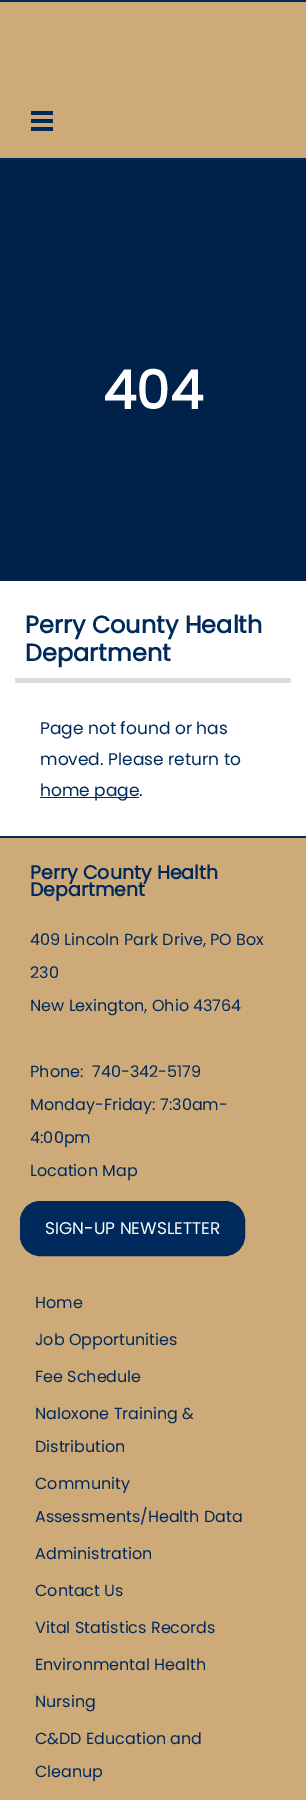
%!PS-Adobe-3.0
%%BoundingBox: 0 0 306 1800
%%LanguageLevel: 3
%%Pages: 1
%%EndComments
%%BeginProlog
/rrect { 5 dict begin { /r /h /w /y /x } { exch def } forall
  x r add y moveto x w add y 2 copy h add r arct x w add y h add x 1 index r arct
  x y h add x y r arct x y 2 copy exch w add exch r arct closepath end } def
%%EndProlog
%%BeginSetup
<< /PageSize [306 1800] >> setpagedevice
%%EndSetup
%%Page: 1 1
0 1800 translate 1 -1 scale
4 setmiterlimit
0 0.165 0.361 setrgbcolor
0 0 306 1800 rectfill
0.808 0.667 0.471 setrgbcolor
0 2 306 156 rectfill
0 0.165 0.361 setrgbcolor
31 111 22 4 rectfill
31 119 22 4 rectfill
31 127 22 4 rectfill
0 0.133 0.29 setrgbcolor
0 160 306 421 rectfill
1 setgray
0 581 306 255 rectfill
0.863 setgray
15 678 276 5 rectfill
0 0.165 0.361 setrgbcolor
40 797 99 1 rectfill
0.808 0.667 0.471 setrgbcolor
0 838 306 962 rectfill
0 0.165 0.361 setrgbcolor
20.5 1201.5 224 54 19.5 rrect gsave fill grestore
stroke
/Poppins-Bold [53 0 0 -53 0 0] selectfont
1 setgray
103 409 moveto (404) show
/Poppins-Bold [24 0 0 -24 0 0] selectfont
0 0.165 0.361 setrgbcolor
25 633 moveto (Perry County Health) show
25 661 moveto (Department) show
/Poppins-Regular [17 0 0 -17 0 0] selectfont
40 734 moveto (Page not found or has) show
40 765 moveto (moved. Please return to) show
40 796 moveto (home page.) show
/Poppins-Bold [19 0 0 -19 0 0] selectfont
30 879 moveto (Perry County Health) show
30 896 moveto (Department) show
/Poppins-Regular [16 0 0 -16 0 0] selectfont
30 945 moveto (409 Lincoln Park Drive, PO Box) show
30 978 moveto (230) show
30 1011 moveto (New Lexington, Ohio 43764) show
30 1077 moveto (Phone:) show
92 1077 moveto (740-342-5179) show
30 1110 moveto (Monday-Friday: 7:30am-) show
30 1143 moveto (4:00pm) show
30 1176 moveto (Location Map) show
/Poppins-Regular [17 0 0 -17 0 0] selectfont
1 setgray
45 1234 moveto (SIGN-UP NEWSLETTER) show
/Poppins-Regular [16 0 0 -16 0 0] selectfont
0 0.165 0.361 setrgbcolor
35 1308 moveto (Home) show
35 1345 moveto (Job Opportunities) show
35 1382 moveto (Fee Schedule) show
35 1419 moveto (Naloxone Training &) show
35 1452 moveto (Distribution) show
35 1489 moveto (Community) show
35 1522 moveto (Assessments/Health Data) show
35 1559 moveto (Administration) show
35 1596 moveto (Contact Us) show
35 1633 moveto (Vital Statistics Records) show
35 1670 moveto (Environmental Health) show
35 1707 moveto (Nursing) show
35 1744 moveto (C&DD Education and) show
35 1777 moveto (Cleanup) show
showpage
%%EOF
